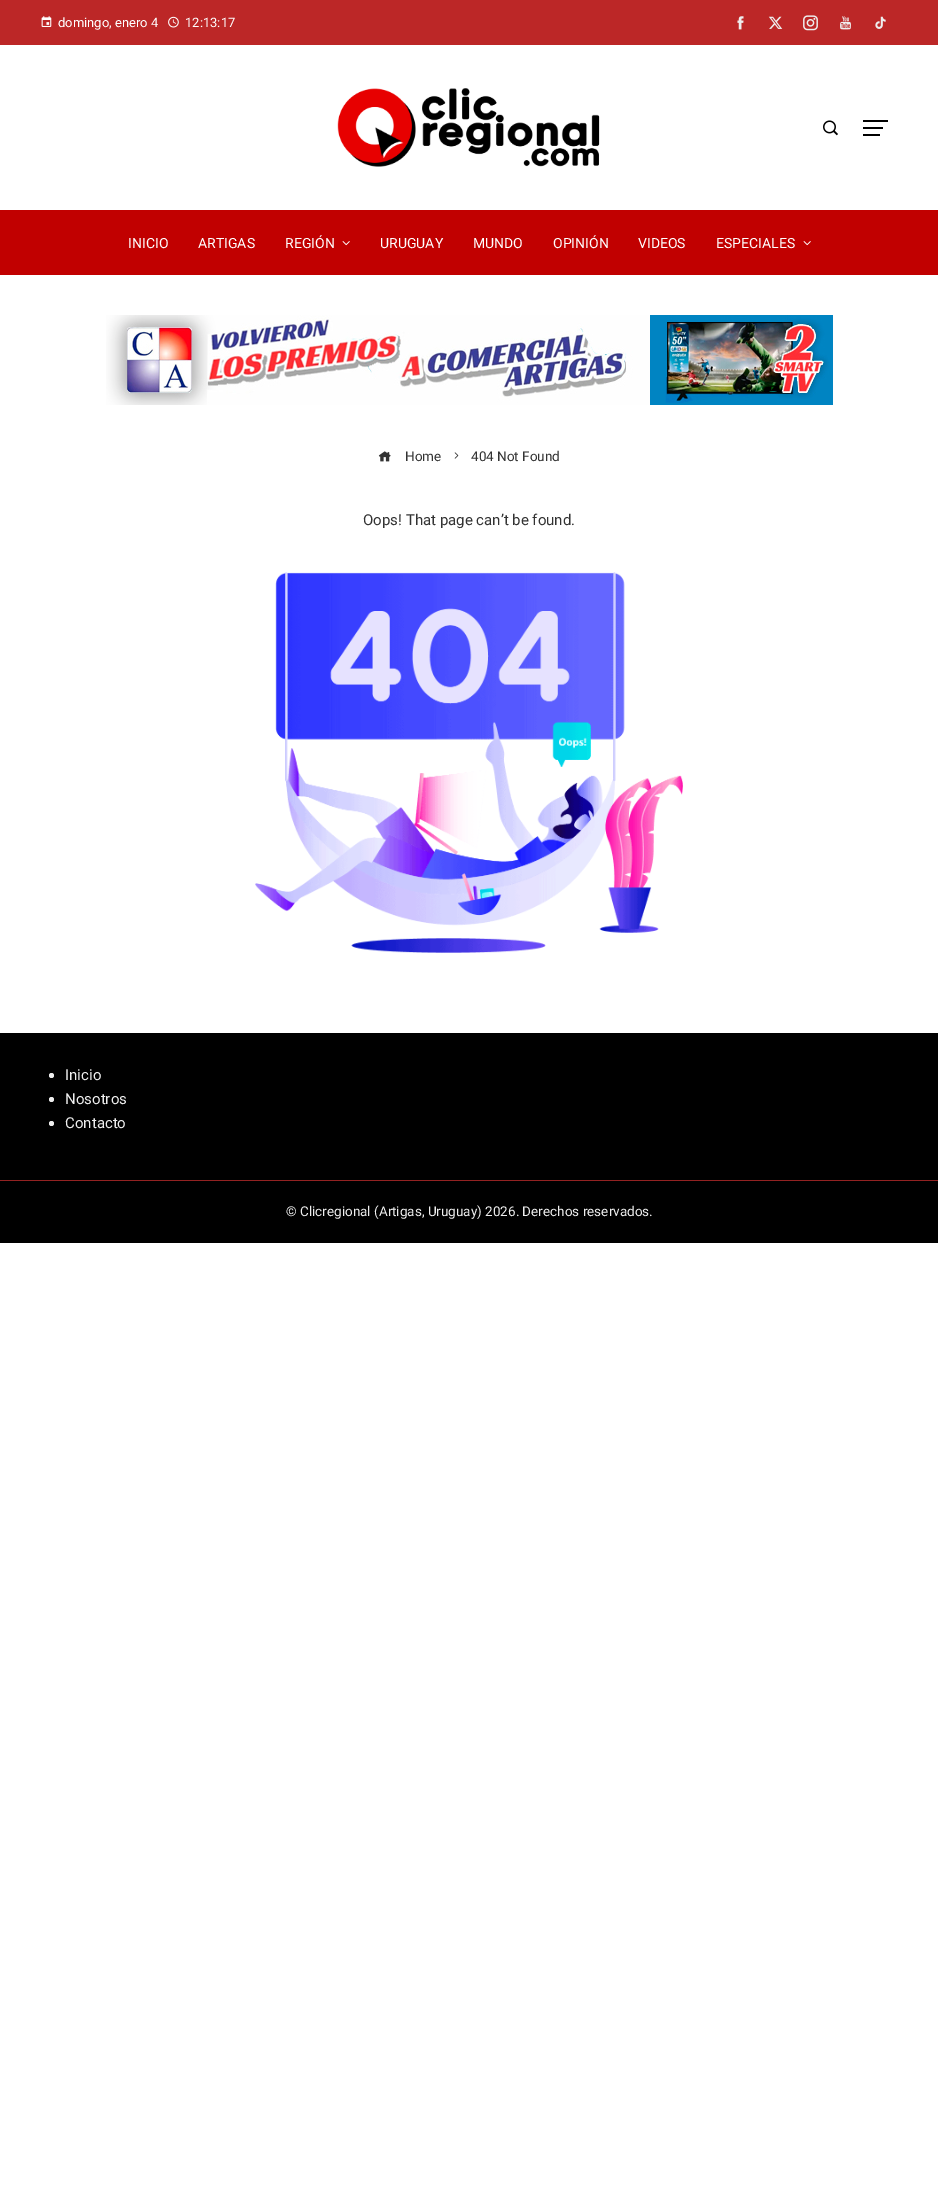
%!PS-Adobe-3.0
%%BoundingBox: 0 0 938 2193
%%LanguageLevel: 3
%%Pages: 1
%%EndComments
%%BeginProlog
/drawimage { 5 dict begin { /h /w /y /x /name } { exch def } forall
  gsave x y translate w h scale
  w h 8 [w 0 0 h 0 0] name (r) file false 3 colorimage grestore end } def
%%EndProlog
%%BeginSetup
<< /PageSize [938 2193] >> setpagedevice
%%EndSetup
%%Page: 1 1
0 2193 translate 1 -1 scale
4 setmiterlimit
1 setgray
0 0 938 2193 rectfill
0.737 0.153 0.153 setrgbcolor
0 0 938 45 rectfill
(images/1.raw) 41 16 11 11 drawimage
(images/2.raw) 168 16 11 12 drawimage
(images/3.raw) 737 16 7 14 drawimage
(images/4.raw) 768 16 15 13 drawimage
(images/5.raw) 803 15 15 16 drawimage
(images/6.raw) 840 16 11 14 drawimage
(images/7.raw) 875 16 11 13 drawimage
(images/8.raw) 337 88 263 79 drawimage
(images/9.raw) 823 120 15 16 drawimage
0 setgray
863 120 25 2 rectfill
863 127 20 2 rectfill
863 134 17 2 rectfill
0.757 0 0 setrgbcolor
0 210 938 65 rectfill
(images/10.raw) 342 241 8 5 drawimage
(images/10.raw) 803 241 8 5 drawimage
(images/11.raw) 106 315 727 90 drawimage
(images/12.raw) 378 451 13 11 drawimage
(images/13.raw) 454 452 5 7 drawimage
(images/14.raw) 255 572 428 381 drawimage
0 setgray
0 1033 938 210 rectfill
0.576 0.133 0.133 setrgbcolor
0 1180 938 1 rectfill
0.933 setgray
newpath 51.5 1075.5 2.5 0 360 arc closepath fill
newpath 51.5 1099.5 2.5 0 360 arc closepath fill
newpath 51.5 1123.5 2.5 0 360 arc closepath fill
/Roboto-Regular [13 0 0 -13 0 0] selectfont
1 setgray
58 27 moveto (domingo, enero 4) show
185 27 moveto (12:13:17) show
/Roboto-Regular [14 0 0 -14 0 0] selectfont
128 248 moveto (INICIO) show
198 248 moveto (ARTIGAS) show
285 248 moveto (REGIÓN) show
380 248 moveto (URUGUAY) show
473 248 moveto (MUNDO) show
553 248 moveto (OPINIÓN) show
638 248 moveto (VIDEOS) show
716 248 moveto (ESPECIALES) show
/Roboto-Regular [13.5 0 0 -13.5 0 0] selectfont
0.2 setgray
405 461 moveto (Home) show
471 461 moveto (404 Not Found) show
/Roboto-Regular [15 0 0 -15 0 0] selectfont
363 525 moveto (Oops! That page can’t be found.) show
0.933 setgray
65 1080 moveto (Inicio) show
65 1104 moveto (Nosotros) show
65 1128 moveto (Contacto) show
/Roboto-Regular [13.5 0 0 -13.5 0 0] selectfont
286 1216 moveto (© Clicregional \(Artigas, Uruguay\) 2026. Derechos reservados.) show
showpage
%%EOF
